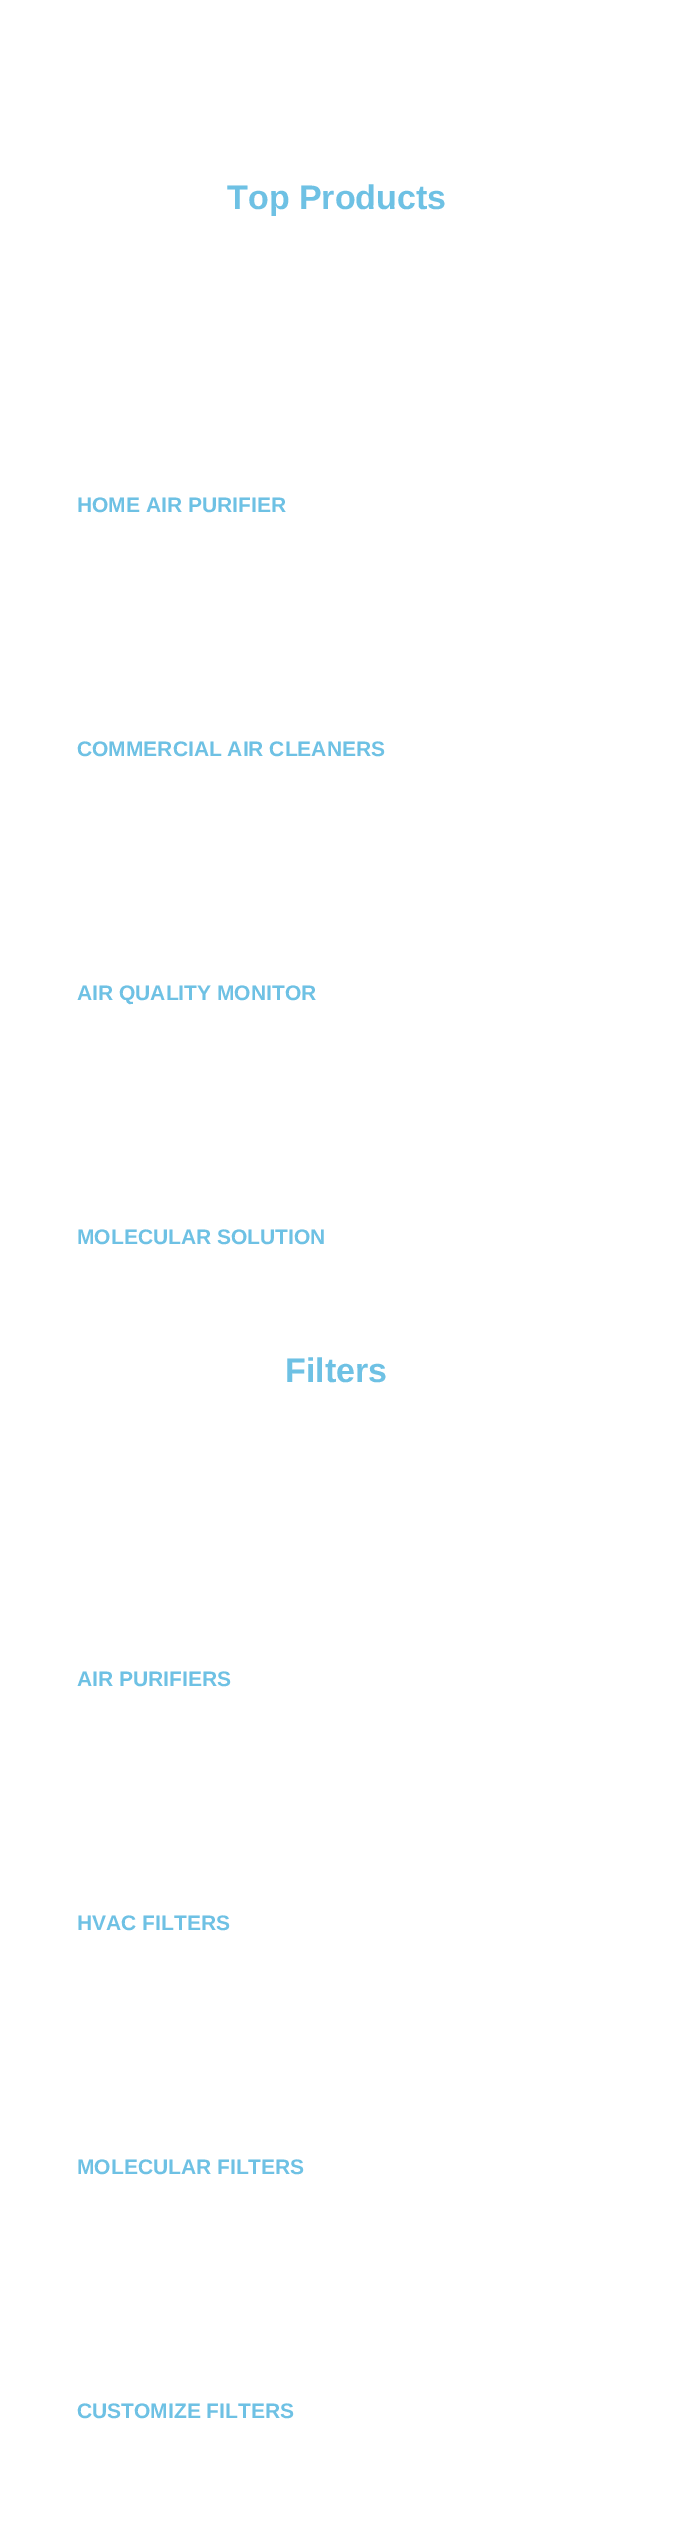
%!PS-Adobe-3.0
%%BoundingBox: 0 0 673 2522
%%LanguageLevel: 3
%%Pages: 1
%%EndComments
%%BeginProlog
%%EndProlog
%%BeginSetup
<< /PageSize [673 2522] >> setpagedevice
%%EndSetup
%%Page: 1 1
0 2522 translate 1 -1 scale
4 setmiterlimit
1 setgray
0 0 673 2522 rectfill
/LiberationSans-Bold [34 0 0 -34 0 0] selectfont
0.431 0.757 0.894 setrgbcolor
227 209 moveto (Top Products) show
/LiberationSans-Bold [21 0 0 -21 0 0] selectfont
77 512 moveto (HOME AIR PURIFIER) show
77 756 moveto (COMMERCIAL AIR CLEANERS) show
77 1000 moveto (AIR QUALITY MONITOR) show
77 1244 moveto (MOLECULAR SOLUTION) show
/LiberationSans-Bold [34 0 0 -34 0 0] selectfont
285 1382 moveto (Filters) show
/LiberationSans-Bold [21 0 0 -21 0 0] selectfont
77 1686 moveto (AIR PURIFIERS) show
77 1930 moveto (HVAC FILTERS) show
77 2174 moveto (MOLECULAR FILTERS) show
77 2418 moveto (CUSTOMIZE FILTERS) show
showpage
%%EOF
